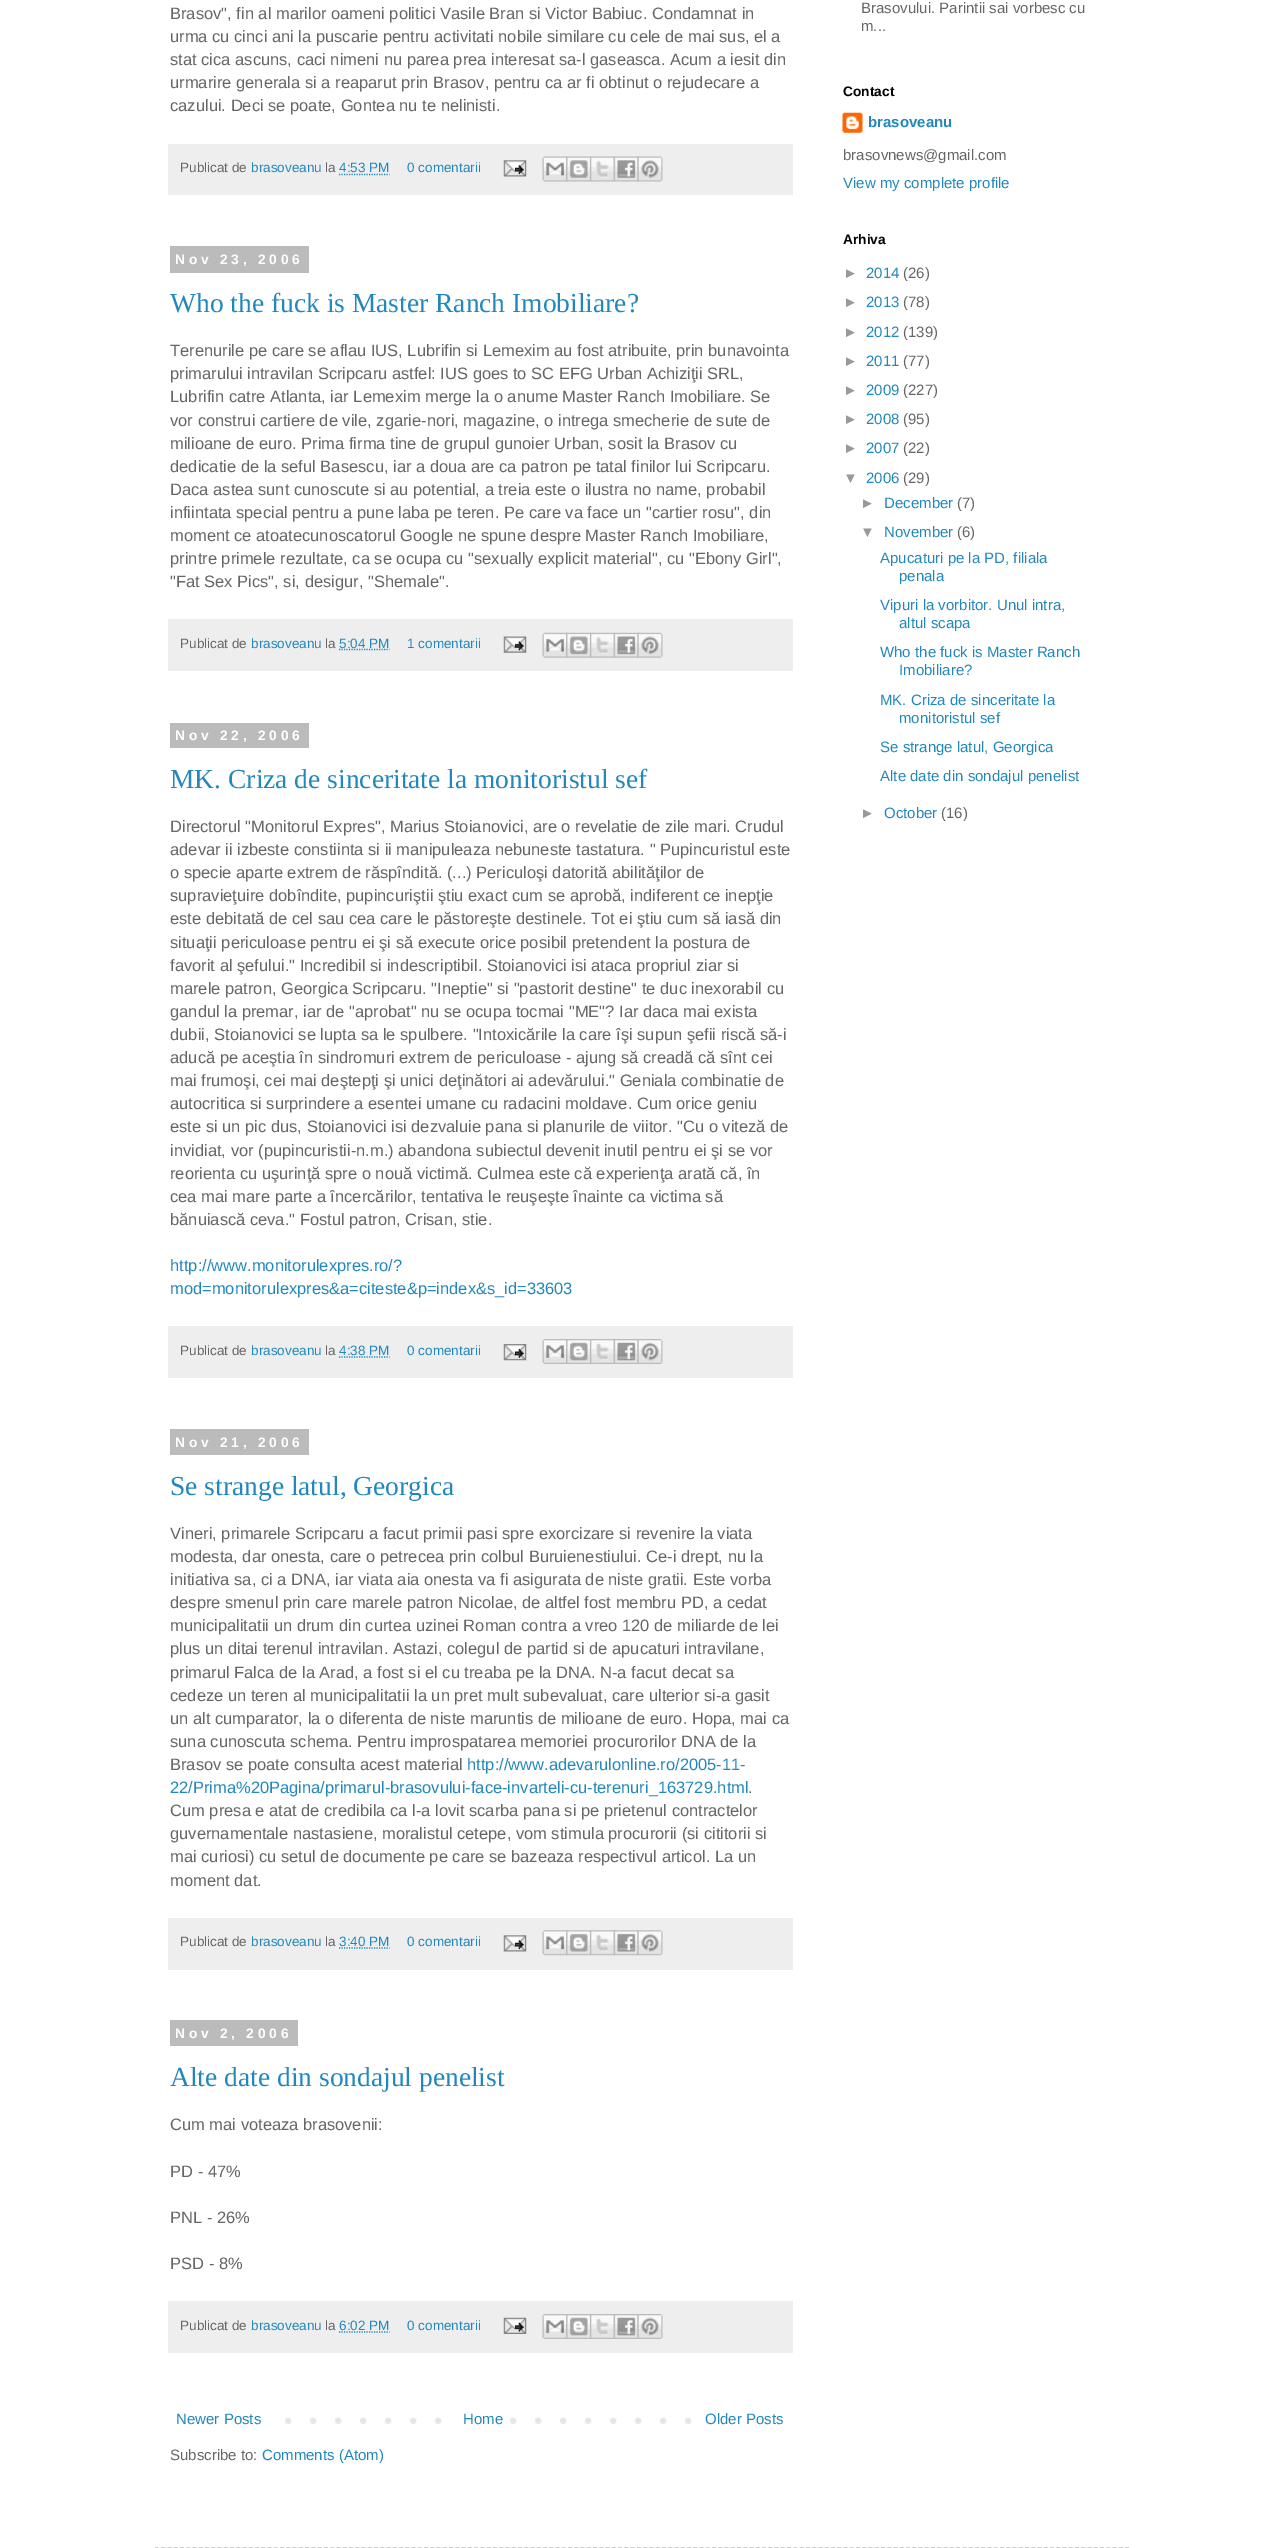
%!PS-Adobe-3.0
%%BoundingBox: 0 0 1284 2548
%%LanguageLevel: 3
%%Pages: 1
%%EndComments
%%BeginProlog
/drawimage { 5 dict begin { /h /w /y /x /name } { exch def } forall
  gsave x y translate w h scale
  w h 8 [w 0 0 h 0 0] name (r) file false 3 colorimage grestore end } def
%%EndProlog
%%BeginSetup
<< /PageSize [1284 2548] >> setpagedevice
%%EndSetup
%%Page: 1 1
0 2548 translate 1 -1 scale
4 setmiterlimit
1 setgray
0 0 1284 2548 rectfill
0.933 setgray
168 144 625 51 rectfill
0.133 0.533 0.733 setrgbcolor
1.2 setlinewidth
[1.25 1.25] 0 setdash
newpath 339 174.5 moveto 389.5 174.5 lineto stroke
(images/1.raw) 503 160 24 17 drawimage
(images/2.raw) 542 156 26 26 drawimage
(images/3.raw) 566 156 26 26 drawimage
(images/4.raw) 590 156 25 26 drawimage
(images/5.raw) 613 156 26 26 drawimage
(images/6.raw) 637 156 26 26 drawimage
0.733 setgray
170 246 139 27 rectfill
0.933 setgray
168 619 625 52 rectfill
0.133 0.533 0.733 setrgbcolor
newpath 339 649.5 moveto 389.5 649.5 lineto stroke
(images/7.raw) 503 636 24 17 drawimage
(images/8.raw) 542 632 26 26 drawimage
(images/9.raw) 566 632 26 26 drawimage
(images/10.raw) 590 632 25 26 drawimage
(images/11.raw) 613 632 26 26 drawimage
(images/12.raw) 637 632 26 26 drawimage
0.733 setgray
170 723 139 25 rectfill
0.933 setgray
168 1326 625 52 rectfill
0.133 0.533 0.733 setrgbcolor
newpath 339 1357 moveto 389.5 1357 lineto stroke
(images/13.raw) 503 1344 24 17 drawimage
(images/14.raw) 542 1339 25 25 drawimage
(images/15.raw) 566 1339 24 25 drawimage
(images/16.raw) 590 1339 24 25 drawimage
(images/17.raw) 613 1339 25 25 drawimage
(images/18.raw) 637 1339 26 25 drawimage
0.733 setgray
170 1429 139 26 rectfill
0.933 setgray
168 1918 625 52 rectfill
0.133 0.533 0.733 setrgbcolor
newpath 339 1948 moveto 389.5 1948 lineto stroke
(images/1.raw) 503 1935 24 17 drawimage
(images/19.raw) 542 1930 26 26 drawimage
(images/20.raw) 566 1930 26 26 drawimage
(images/21.raw) 590 1930 25 26 drawimage
(images/22.raw) 613 1930 26 26 drawimage
(images/23.raw) 637 1930 26 26 drawimage
0.733 setgray
170 2020 128 26 rectfill
0.933 setgray
168 2301 625 52 rectfill
0.133 0.533 0.733 setrgbcolor
newpath 339 2332 moveto 389.5 2332 lineto stroke
(images/24.raw) 503 2317 24 17 drawimage
(images/14.raw) 542 2314 25 25 drawimage
(images/15.raw) 566 2314 24 25 drawimage
(images/16.raw) 590 2314 24 25 drawimage
(images/17.raw) 613 2314 25 25 drawimage
(images/18.raw) 637 2314 26 25 drawimage
(images/25.raw) 285 2417 407 7 drawimage
1 setgray
460 2417 32 7 rectfill
(images/26.raw) 842 112 21 21 drawimage
0.733 setgray
[3.75 2.51] 0 setdash
newpath 155 2548 moveto 1130 2548 lineto stroke
/LiberationSans-Regular [16.5 0 0 -16.5 0 0] selectfont
0.4 setgray
170 19 moveto (Brasov", fin al marilor oameni politici Vasile Bran si Victor Babiuc. Condamnat in) show
170 42 moveto (urma cu cinci ani la puscarie pentru activitati nobile similare cu cele de mai sus, el a) show
170 65 moveto (stat cica ascuns, caci nimeni nu parea prea interesat sa-l gaseasca. Acum a iesit din) show
170 88 moveto (urmarire generala si a reaparut prin Brasov, pentru ca ar fi obtinut o rejudecare a) show
170 111 moveto (cazului. Deci se poate, Gontea nu te nelinisti.) show
/LiberationSans-Regular [13.5 0 0 -13.5 0 0] selectfont
180 172 moveto (Publicat de) show
0.133 0.533 0.733 setrgbcolor
251 172 moveto (brasoveanu) show
0.4 setgray
325 172 moveto (la) show
0.133 0.533 0.733 setrgbcolor
339 172 moveto (4:53 PM) show
407 172 moveto (0 comentarii) show
/LiberationSans-Bold [13.75 0 0 -13.75 0 0] selectfont
1 setgray
175 264 moveto 3.75 0 (Nov 23, 2006) ashow
/LiberationSerif-Regular [27.5 0 0 -27.5 0 0] selectfont
0.133 0.533 0.733 setrgbcolor
170 312 moveto (Who the fuck is Master Ranch Imobiliare?) show
/LiberationSans-Regular [16.5 0 0 -16.5 0 0] selectfont
0.4 setgray
170 356 moveto (Terenurile pe care se aflau IUS, Lubrifin si Lemexim au fost atribuite, prin bunavointa) show
170 379 moveto (primarului intravilan Scripcaru astfel: IUS goes to SC EFG Urban Achiziţii SRL,) show
170 402 moveto (Lubrifin catre Atlanta, iar Lemexim merge la o anume Master Ranch Imobiliare. Se) show
170 426 moveto (vor construi cartiere de vile, zgarie-nori, magazine, o intrega smecherie de sute de) show
170 449 moveto (milioane de euro. Prima firma tine de grupul gunoier Urban, sosit la Brasov cu) show
170 472 moveto (dedicatie de la seful Basescu, iar a doua are ca patron pe tatal finilor lui Scripcaru.) show
170 495 moveto (Daca astea sunt cunoscute si au potential, a treia este o ilustra no name, probabil) show
170 518 moveto (infiintata special pentru a pune laba pe teren. Pe care va face un "cartier rosu", din) show
170 541 moveto (moment ce atoatecunoscatorul Google ne spune despre Master Ranch Imobiliare,) show
170 564 moveto (printre primele rezultate, ca se ocupa cu "sexually explicit material", cu "Ebony Girl",) show
170 587 moveto ("Fat Sex Pics", si, desigur, "Shemale".) show
/LiberationSans-Regular [13.5 0 0 -13.5 0 0] selectfont
180 648 moveto (Publicat de) show
0.133 0.533 0.733 setrgbcolor
251 648 moveto (brasoveanu) show
0.4 setgray
325 648 moveto (la) show
0.133 0.533 0.733 setrgbcolor
339 648 moveto (5:04 PM) show
407 648 moveto (1 comentarii) show
/LiberationSans-Bold [13.75 0 0 -13.75 0 0] selectfont
1 setgray
175 740 moveto 3.75 0 (Nov 22, 2006) ashow
/LiberationSerif-Regular [27.5 0 0 -27.5 0 0] selectfont
0.133 0.533 0.733 setrgbcolor
170 788 moveto (MK. Criza de sinceritate la monitoristul sef) show
/LiberationSans-Regular [16.5 0 0 -16.5 0 0] selectfont
0.4 setgray
170 832 moveto (Directorul "Monitorul Expres", Marius Stoianovici, are o revelatie de zile mari. Crudul) show
170 855 moveto (adevar ii izbeste constiinta si ii manipuleaza nebuneste tastatura. " Pupincuristul este) show
170 878 moveto (o specie aparte extrem de răspîndită. \(...\) Periculoşi datorită abilităţilor de) show
170 901 moveto (supravieţuire dobîndite, pupincuriştii ştiu exact cum se aprobă, indiferent ce inepţie) show
170 924 moveto (este debitată de cel sau cea care le păstoreşte destinele. Tot ei ştiu cum să iasă din) show
170 948 moveto (situaţii periculoase pentru ei şi să execute orice posibil pretendent la postura de) show
170 971 moveto (favorit al şefului." Incredibil si indescriptibil. Stoianovici isi ataca propriul ziar si) show
170 994 moveto (marele patron, Georgica Scripcaru. "Ineptie" si "pastorit destine" te duc inexorabil cu) show
170 1017 moveto (gandul la premar, iar de "aprobat" nu se ocupa tocmai "ME"? Iar daca mai exista) show
170 1040 moveto (dubii, Stoianovici se lupta sa le spulbere. "Intoxicările la care îşi supun şefii riscă să-i) show
170 1063 moveto (aducă pe aceştia în sindromuri extrem de periculoase - ajung să creadă că sînt cei) show
170 1086 moveto (mai frumoşi, cei mai deştepţi şi unici deţinători ai adevărului." Geniala combinatie de) show
170 1109 moveto (autocritica si surprindere a esentei umane cu radacini moldave. Cum orice geniu) show
170 1132 moveto (este si un pic dus, Stoianovici isi dezvaluie pana si planurile de viitor. "Cu o viteză de) show
170 1156 moveto (invidiat, vor \(pupincuristii-n.m.\) abandona subiectul devenit inutil pentru ei şi se vor) show
170 1179 moveto (reorienta cu uşurinţă spre o nouă victimă. Culmea este că experienţa arată că, în) show
170 1202 moveto (cea mai mare parte a încercărilor, tentativa le reuşeşte înainte ca victima să) show
170 1225 moveto (bănuiască ceva." Fostul patron, Crisan, stie.) show
0.133 0.533 0.733 setrgbcolor
170 1271 moveto (http://www.monitorulexpres.ro/?) show
170 1294 moveto (mod=monitorulexpres&a=citeste&p=index&s_id=33603) show
/LiberationSans-Regular [13.5 0 0 -13.5 0 0] selectfont
0.4 setgray
180 1355 moveto (Publicat de) show
0.133 0.533 0.733 setrgbcolor
251 1355 moveto (brasoveanu) show
0.4 setgray
325 1355 moveto (la) show
0.133 0.533 0.733 setrgbcolor
339 1355 moveto (4:38 PM) show
407 1355 moveto (0 comentarii) show
/LiberationSans-Bold [13.75 0 0 -13.75 0 0] selectfont
1 setgray
175 1447 moveto 3.75 0 (Nov 21, 2006) ashow
/LiberationSerif-Regular [27.5 0 0 -27.5 0 0] selectfont
0.133 0.533 0.733 setrgbcolor
170 1495 moveto (Se strange latul, Georgica) show
/LiberationSans-Regular [16.5 0 0 -16.5 0 0] selectfont
0.4 setgray
170 1539 moveto (Vineri, primarele Scripcaru a facut primii pasi spre exorcizare si revenire la viata) show
170 1562 moveto (modesta, dar onesta, care o petrecea prin colbul Buruienestiului. Ce-i drept, nu la) show
170 1585 moveto (initiativa sa, ci a DNA, iar viata aia onesta va fi asigurata de niste gratii. Este vorba) show
170 1608 moveto (despre smenul prin care marele patron Nicolae, de altfel fost membru PD, a cedat) show
170 1631 moveto (municipalitatii un drum din curtea uzinei Roman contra a vreo 120 de miliarde de lei) show
170 1654 moveto (plus un ditai terenul intravilan. Astazi, colegul de partid si de apucaturi intravilane,) show
170 1678 moveto (primarul Falca de la Arad, a fost si el cu treaba pe la DNA. N-a facut decat sa) show
170 1701 moveto (cedeze un teren al municipalitatii la un pret mult subevaluat, care ulterior si-a gasit) show
170 1724 moveto (un alt cumparator, la o diferenta de niste maruntis de milioane de euro. Hopa, mai ca) show
170 1747 moveto (suna cunoscuta schema. Pentru improspatarea memoriei procurorilor DNA de la) show
170 1770 moveto (Brasov se poate consulta acest material) show
0.133 0.533 0.733 setrgbcolor
467 1770 moveto (http://www.adevarulonline.ro/2005-11-) show
170 1793 moveto (22/Prima%20Pagina/primarul-brasovului-face-invarteli-cu-terenuri_163729.html) show
0.4 setgray
748 1793 moveto (.) show
170 1816 moveto (Cum presa e atat de credibila ca l-a lovit scarba pana si pe prietenul contractelor) show
170 1839 moveto (guvernamentale nastasiene, moralistul cetepe, vom stimula procurorii \(si cititorii si) show
170 1862 moveto (mai curiosi\) cu setul de documente pe care se bazeaza respectivul articol. La un) show
170 1886 moveto (moment dat.) show
/LiberationSans-Regular [13.5 0 0 -13.5 0 0] selectfont
180 1946 moveto (Publicat de) show
0.133 0.533 0.733 setrgbcolor
251 1946 moveto (brasoveanu) show
0.4 setgray
325 1946 moveto (la) show
0.133 0.533 0.733 setrgbcolor
339 1946 moveto (3:40 PM) show
407 1946 moveto (0 comentarii) show
/LiberationSans-Bold [13.75 0 0 -13.75 0 0] selectfont
1 setgray
175 2038 moveto 3.75 0 (Nov 2, 2006) ashow
/LiberationSerif-Regular [27.5 0 0 -27.5 0 0] selectfont
0.133 0.533 0.733 setrgbcolor
170 2086 moveto (Alte date din sondajul penelist) show
/LiberationSans-Regular [16.5 0 0 -16.5 0 0] selectfont
0.4 setgray
170 2130 moveto (Cum mai voteaza brasovenii:) show
170 2177 moveto (PD - 47%) show
170 2223 moveto (PNL - 26%) show
170 2269 moveto (PSD - 8%) show
/LiberationSans-Regular [13.5 0 0 -13.5 0 0] selectfont
180 2330 moveto (Publicat de) show
0.133 0.533 0.733 setrgbcolor
251 2330 moveto (brasoveanu) show
0.4 setgray
325 2330 moveto (la) show
0.133 0.533 0.733 setrgbcolor
339 2330 moveto (6:02 PM) show
407 2330 moveto (0 comentarii) show
/LiberationSans-Regular [15 0 0 -15 0 0] selectfont
176 2424 moveto (Newer Posts) show
463 2424 moveto (Home) show
705 2424 moveto (Older Posts) show
0.4 setgray
170 2460 moveto (Subscribe to:) show
0.133 0.533 0.733 setrgbcolor
262 2460 moveto (Comments \(Atom\)) show
0.4 setgray
861 13 moveto (Brasovului. Parintii sai vorbesc cu) show
861 31 moveto (m...) show
/LiberationSans-Bold [13.75 0 0 -13.75 0 0] selectfont
0 setgray
843 96 moveto (Contact) show
/LiberationSans-Bold [15 0 0 -15 0 0] selectfont
0.133 0.533 0.733 setrgbcolor
868 127 moveto (brasoveanu) show
/LiberationSans-Regular [15 0 0 -15 0 0] selectfont
0.4 setgray
843 160 moveto (brasovnews@gmail.com) show
0.133 0.533 0.733 setrgbcolor
843 188 moveto (View my complete profile) show
/LiberationSans-Bold [13.75 0 0 -13.75 0 0] selectfont
0 setgray
843 244 moveto (Arhiva) show
/LiberationSans-Regular [15 0 0 -15 0 0] selectfont
0.6 setgray
843 278 moveto (►) show
0.133 0.533 0.733 setrgbcolor
866 278 moveto (2014) show
0.4 setgray
903 278 moveto (\(26\)) show
0.6 setgray
843 307 moveto (►) show
0.133 0.533 0.733 setrgbcolor
866 307 moveto (2013) show
0.4 setgray
903 307 moveto (\(78\)) show
0.6 setgray
843 337 moveto (►) show
0.133 0.533 0.733 setrgbcolor
866 337 moveto (2012) show
0.4 setgray
903 337 moveto (\(139\)) show
0.6 setgray
843 366 moveto (►) show
0.133 0.533 0.733 setrgbcolor
866 366 moveto (2011) show
0.4 setgray
903 366 moveto (\(77\)) show
0.6 setgray
843 395 moveto (►) show
0.133 0.533 0.733 setrgbcolor
866 395 moveto (2009) show
0.4 setgray
903 395 moveto (\(227\)) show
0.6 setgray
843 424 moveto (►) show
0.133 0.533 0.733 setrgbcolor
866 424 moveto (2008) show
0.4 setgray
903 424 moveto (\(95\)) show
0.6 setgray
843 453 moveto (►) show
0.133 0.533 0.733 setrgbcolor
866 453 moveto (2007) show
0.4 setgray
903 453 moveto (\(22\)) show
0.6 setgray
843 483 moveto (▼) show
0.133 0.533 0.733 setrgbcolor
866 483 moveto (2006) show
0.4 setgray
903 483 moveto (\(29\)) show
0.6 setgray
860 508 moveto (►) show
0.133 0.533 0.733 setrgbcolor
884 508 moveto (December) show
0.4 setgray
957 508 moveto (\(7\)) show
0.6 setgray
860 537 moveto (▼) show
0.133 0.533 0.733 setrgbcolor
884 537 moveto (November) show
0.4 setgray
957 537 moveto (\(6\)) show
0.133 0.533 0.733 setrgbcolor
880 563 moveto (Apucaturi pe la PD, filiala) show
899 581 moveto (penala) show
880 610 moveto (Vipuri la vorbitor. Unul intra,) show
899 628 moveto (altul scapa) show
880 657 moveto (Who the fuck is Master Ranch) show
899 675 moveto (Imobiliare?) show
880 705 moveto (MK. Criza de sinceritate la) show
899 723 moveto (monitoristul sef) show
880 752 moveto (Se strange latul, Georgica) show
880 781 moveto (Alte date din sondajul penelist) show
0.6 setgray
860 818 moveto (►) show
0.133 0.533 0.733 setrgbcolor
884 818 moveto (October) show
0.4 setgray
941 818 moveto (\(16\)) show
showpage
%%EOF
